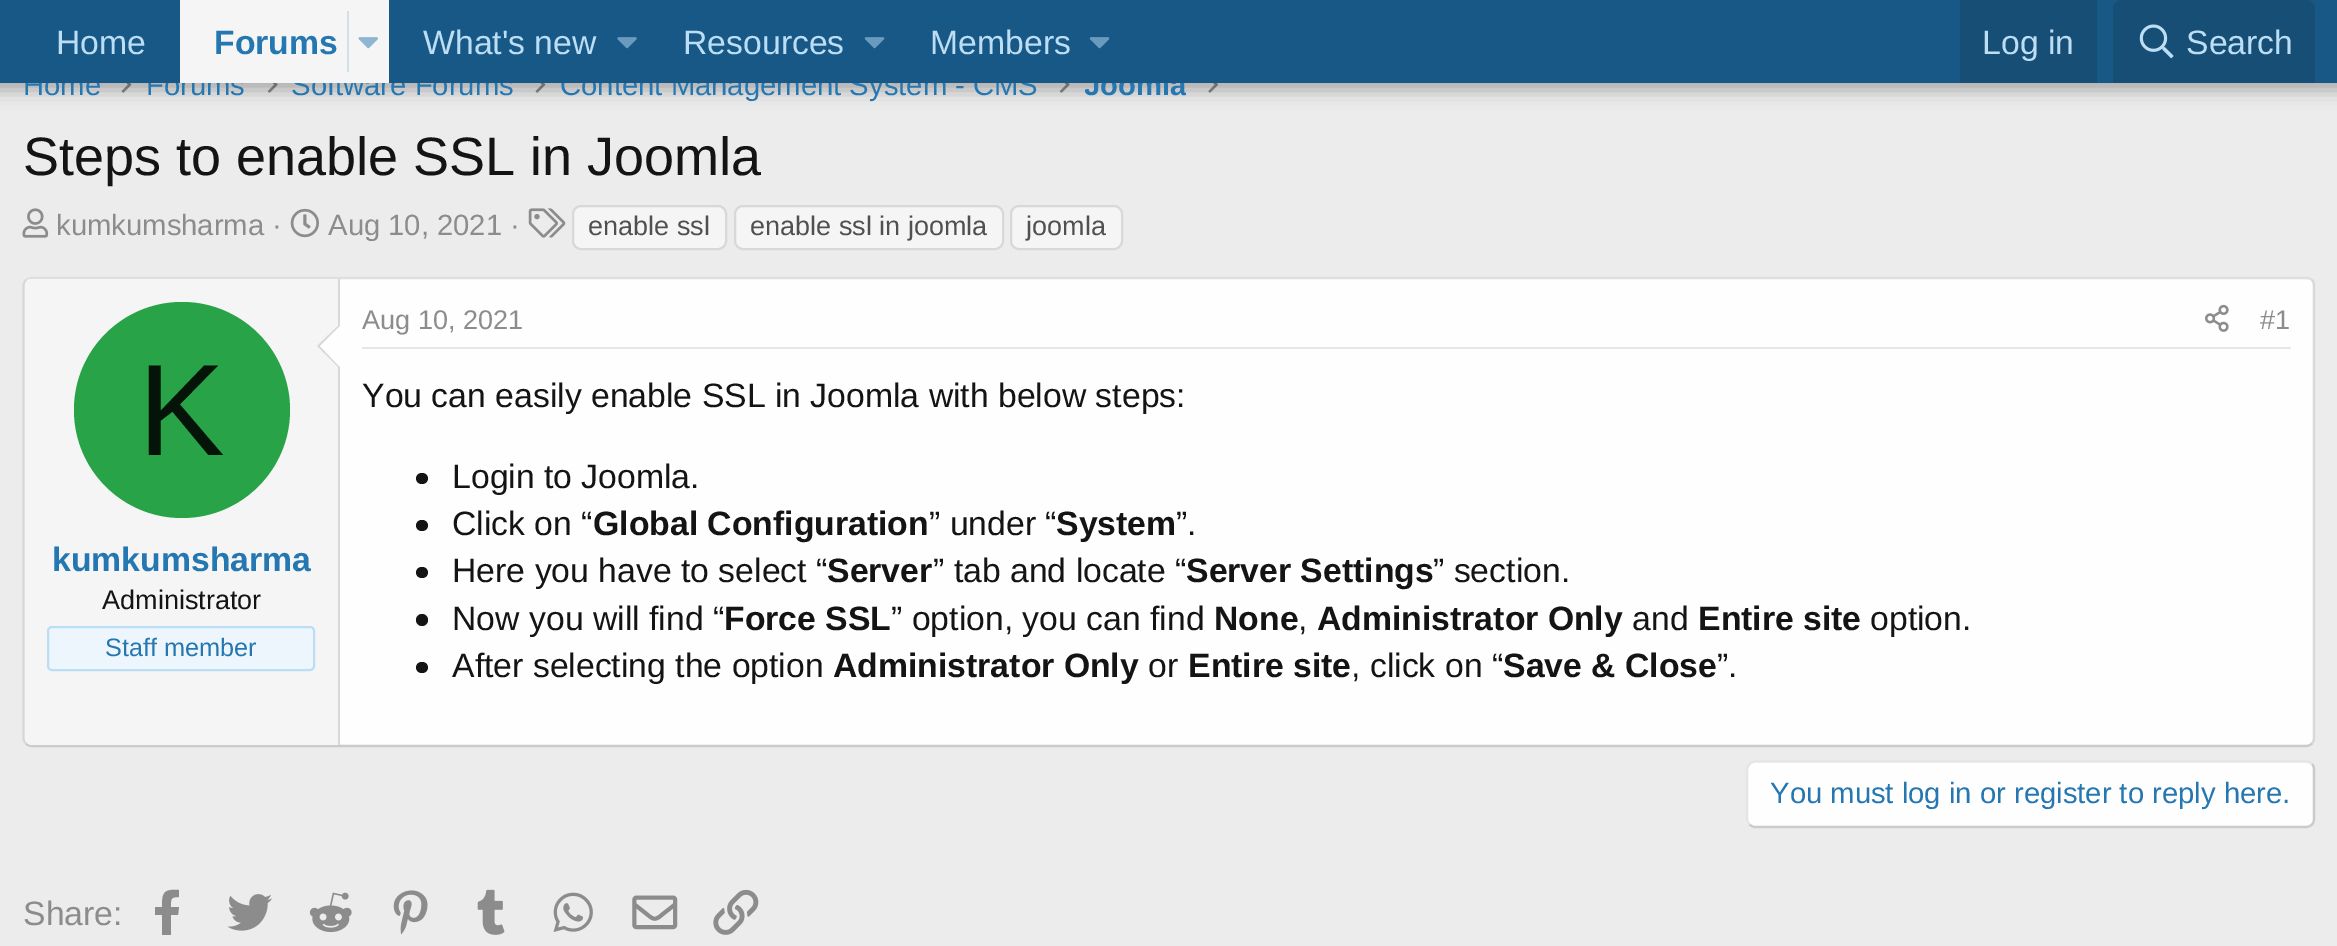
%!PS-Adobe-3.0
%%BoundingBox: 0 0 2337 946
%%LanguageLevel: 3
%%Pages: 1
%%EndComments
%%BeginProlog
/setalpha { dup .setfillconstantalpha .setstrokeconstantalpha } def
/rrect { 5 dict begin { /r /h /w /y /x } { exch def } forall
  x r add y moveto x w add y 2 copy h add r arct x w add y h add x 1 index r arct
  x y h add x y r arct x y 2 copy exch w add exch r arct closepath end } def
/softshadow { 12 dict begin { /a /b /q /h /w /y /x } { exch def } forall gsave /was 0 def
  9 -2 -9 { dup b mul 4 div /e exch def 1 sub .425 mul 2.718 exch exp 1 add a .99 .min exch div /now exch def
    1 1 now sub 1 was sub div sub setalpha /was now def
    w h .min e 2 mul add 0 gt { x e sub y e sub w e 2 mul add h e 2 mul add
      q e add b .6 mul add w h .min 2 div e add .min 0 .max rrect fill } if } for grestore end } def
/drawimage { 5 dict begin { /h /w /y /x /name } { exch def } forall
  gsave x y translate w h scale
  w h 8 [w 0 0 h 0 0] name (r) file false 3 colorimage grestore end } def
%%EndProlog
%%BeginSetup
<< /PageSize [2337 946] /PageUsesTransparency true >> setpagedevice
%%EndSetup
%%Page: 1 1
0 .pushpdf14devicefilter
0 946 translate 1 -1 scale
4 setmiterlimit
0.925 setgray
0 0 2337 946 rectfill
(images/5.raw) 121 83 11 10 drawimage
(images/6.raw) 267 83 11 10 drawimage
(images/5.raw) 535 83 11 10 drawimage
(images/6.raw) 1059 83 11 10 drawimage
(images/7.raw) 1208 83 11 10 drawimage
0 setgray
-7 -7 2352 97 0 9 0.3 softshadow
(images/8.raw) 22 208 27 30 drawimage
(images/9.raw) 290 208 29 30 drawimage
(images/10.raw) 528 208 38 30 drawimage
0.961 setgray
573 206 153 43 8 rrect gsave fill grestore
0.847 setgray
2 setlinewidth
stroke
0.961 setgray
735 206 268 43 8 rrect gsave fill grestore
0.847 setgray
stroke
0.961 setgray
1011 206 111 43 8 rrect gsave fill grestore
0.847 setgray
stroke
0.996 setgray
23 277 2292 470 9 rrect fill
0.875 setgray
2.2 setlinewidth
newpath 26 280 moveto 27.5 278.5 29.5 278 31.5 278 curveto 2306 278 lineto 2308.5 278 2310.5 278.5 2312 280 curveto stroke
0.847 setgray
newpath 2312 280 moveto 2313.5 281.5 2314 283.5 2314 286 curveto 2314 738 lineto 2314 740 2313.5 742 2312 743.5 curveto stroke
0.796 setgray
newpath 2312 743.5 moveto 2310.5 745 2308.5 746 2306 746 curveto 31.5 746 lineto 29.5 746 27.5 745 26 743.5 curveto stroke
0.847 setgray
newpath 26 743.5 moveto 24.5 742 23.5 740 23.5 738 curveto 23.5 286 lineto 23.5 283.5 24.5 281.5 26 280 curveto stroke
0.961 setgray
newpath 32 279 moveto 340 279 lineto 340 745 lineto 32 745 lineto 28 745 25 742 25 738 curveto 25 286 lineto 25 282 28 279 32 279 curveto closepath fill
0.847 setgray
338 279 2 466 rectfill
newpath 340 324 moveto 340 369 lineto 317 346 lineto closepath fill
0.996 setgray
newpath 340 326 moveto 340 367 lineto 320 346 lineto closepath fill
0.161 0.639 0.278 setrgbcolor
newpath 182 410 108 0 360 arc closepath fill
0.929 0.965 0.992 setrgbcolor
48 627 266 43 4 rrect gsave fill grestore
0.737 0.871 0.961 setrgbcolor
2 setlinewidth
stroke
0.906 setgray
362 347 1929 2 rectfill
(images/11.raw) 2205 304 24 28 drawimage
0.078 setgray
416 473 12 11 5.5 rrect fill
416 520 12 11 5.5 rrect fill
416 567 12 11 5.5 rrect fill
newpath 422 620 6 0 360 arc closepath fill
416 662 12 11 5.5 rrect fill
0.996 setgray
1746 761 569 67 9 rrect fill
0.796 setgray
2.2 setlinewidth
newpath 2312 764 moveto 2313.5 765.5 2314 767.5 2314 769.5 curveto 2314 819 lineto 2314 821 2313.5 823 2312 824.5 curveto 2310.5 826 2308.5 827 2306 827 curveto 1755 827 lineto 1753 827 1751 826 1749.5 824.5 curveto stroke
0.898 setgray
newpath 1749.5 824.5 moveto 1748 823 1747 821 1747 819 curveto 1747 769.5 lineto 1747 767.5 1748 765.5 1749.5 764 curveto 1751 762.5 1753 761.5 1755 761.5 curveto 2306 761.5 lineto 2308.5 761.5 2310.5 762.5 2312 764 curveto stroke
0.549 setgray
newpath 178 915 moveto 171 915 lineto 171 935 lineto 162 935 lineto 162 915 lineto 155 915 lineto 155 907 lineto 162 907 lineto 162 892 164 889 179 890 curveto 179 897 lineto 170 897 171 899 171 907 curveto 179 907 lineto closepath fill
(images/12.raw) 227 894 45 37 drawimage
(images/13.raw) 309 892 43 41 drawimage
(images/14.raw) 393 890 35 45 drawimage
(images/15.raw) 477 889 28 46 drawimage
(images/16.raw) 553 892 40 40 drawimage
(images/17.raw) 632 895 46 35 drawimage
(images/18.raw) 713 889 46 46 drawimage
/LiberationSans-Regular [29.25 0 0 -29.25 0 0] selectfont
0.145 0.467 0.694 setrgbcolor
23 95 moveto (Home) show
146 95 moveto (Forums) show
291 95 moveto (Software Forums) show
560 95 moveto (Content Management System - CMS) show
gsave
1085 63 101 45 rectclip
/LiberationSans-Bold [29.25 0 0 -29.25 0 0] selectfont
1084 95 moveto (Joomla) show
grestore
0.094 0.345 0.525 setrgbcolor
0 0 2337 83 rectfill
(images/3.raw) 1089 37 21 12 drawimage
(images/3.raw) 864 37 21 12 drawimage
(images/2.raw) 617 37 20 12 drawimage
0.961 setgray
180 0 209 83 rectfill
0.82 0.875 0.914 setrgbcolor
347 11 2 61 rectfill
(images/1.raw) 358 37 20 12 drawimage
/LiberationSans-Regular [33.75 0 0 -33.75 0 0] selectfont
0.737 0.871 0.961 setrgbcolor
930 54 moveto (Members) show
683 54 moveto (Resources) show
423 54 moveto (What's new) show
/LiberationSans-Bold [33.75 0 0 -33.75 0 0] selectfont
0.145 0.467 0.694 setrgbcolor
214 54 moveto (Forums) show
/LiberationSans-Regular [33.75 0 0 -33.75 0 0] selectfont
0.737 0.871 0.961 setrgbcolor
56 54 moveto (Home) show
0.09 0.306 0.459 setrgbcolor
newpath 2122 0 moveto 2306 0 lineto 2311 0 2315 4 2315 9 curveto 2315 83 lineto 2113 83 lineto 2113 9 lineto 2113 4 2117 0 2122 0 curveto closepath fill
0.737 0.871 0.961 setrgbcolor
2186 54 moveto (Search) show
(images/4.raw) 2139 24 35 35 drawimage
0.09 0.306 0.459 setrgbcolor
1960 0 137 83 rectfill
0.737 0.871 0.961 setrgbcolor
1982 54 moveto (Log in) show
/LiberationSans-Regular [54 0 0 -54 0 0] selectfont
0.078 setgray
23 175 moveto (Steps to enable SSL in Joomla) show
/LiberationSans-Regular [29.25 0 0 -29.25 0 0] selectfont
0.549 setgray
56 235 moveto (kumkumsharma ·) show
328 235 moveto (Aug 10, 2021 ·) show
/LiberationSans-Regular [27 0 0 -27 0 0] selectfont
0.314 setgray
588 235 moveto (enable ssl) show
750 235 moveto (enable ssl in joomla) show
1026 235 moveto (joomla) show
/LiberationSans-Regular [130 0 0 -130 0 0] selectfont
0.02 0.078 0.035 setrgbcolor
138 455 moveto (K) show
/LiberationSans-Bold [33.75 0 0 -33.75 0 0] selectfont
0.145 0.467 0.694 setrgbcolor
52 571 moveto (kumkumsharma) show
/LiberationSans-Regular [27 0 0 -27 0 0] selectfont
0.078 setgray
102 609 moveto (Administrator) show
/LiberationSans-Regular [25.25 0 0 -25.25 0 0] selectfont
0.145 0.467 0.694 setrgbcolor
105 656 moveto (Staff member) show
/LiberationSans-Regular [27 0 0 -27 0 0] selectfont
0.549 setgray
362 329 moveto (Aug 10, 2021) show
2260 329 moveto (#1) show
/LiberationSans-Regular [33.75 0 0 -33.75 0 0] selectfont
0.078 setgray
362 407 moveto (You can easily enable SSL in Joomla with below steps:) show
452 488 moveto (Login to Joomla.) show
452 535 moveto (Click on “) show
/LiberationSans-Bold [33.75 0 0 -33.75 0 0] selectfont
593 535 moveto (Global Configuration) show
/LiberationSans-Regular [33.75 0 0 -33.75 0 0] selectfont
929 535 moveto (” under “) show
/LiberationSans-Bold [33.75 0 0 -33.75 0 0] selectfont
1056 535 moveto (System) show
/LiberationSans-Regular [33.75 0 0 -33.75 0 0] selectfont
1176 535 moveto (”.) show
452 582 moveto (Here you have to select “) show
/LiberationSans-Bold [33.75 0 0 -33.75 0 0] selectfont
827 582 moveto (Server) show
/LiberationSans-Regular [33.75 0 0 -33.75 0 0] selectfont
933 582 moveto (” tab and locate “) show
/LiberationSans-Bold [33.75 0 0 -33.75 0 0] selectfont
1186 582 moveto (Server Settings) show
/LiberationSans-Regular [33.75 0 0 -33.75 0 0] selectfont
1433 582 moveto (” section.) show
452 630 moveto (Now you will find “) show
/LiberationSans-Bold [33.75 0 0 -33.75 0 0] selectfont
724 630 moveto (Force SSL) show
/LiberationSans-Regular [33.75 0 0 -33.75 0 0] selectfont
891 630 moveto (” option, you can find) show
/LiberationSans-Bold [33.75 0 0 -33.75 0 0] selectfont
1214 630 moveto (None) show
1317 630 moveto (Administrator Only) show
/LiberationSans-Regular [33.75 0 0 -33.75 0 0] selectfont
1632 630 moveto (and) show
/LiberationSans-Bold [33.75 0 0 -33.75 0 0] selectfont
1698 630 moveto (Entire site) show
/LiberationSans-Regular [33.75 0 0 -33.75 0 0] selectfont
1870 630 moveto (option.) show
1298 630 moveto (,) show
452 677 moveto (After selecting the option) show
/LiberationSans-Bold [33.75 0 0 -33.75 0 0] selectfont
833 677 moveto (Administrator Only) show
/LiberationSans-Regular [33.75 0 0 -33.75 0 0] selectfont
1148 677 moveto (or) show
/LiberationSans-Bold [33.75 0 0 -33.75 0 0] selectfont
1188 677 moveto (Entire site) show
/LiberationSans-Regular [33.75 0 0 -33.75 0 0] selectfont
1351 677 moveto (, click on “) show
/LiberationSans-Bold [33.75 0 0 -33.75 0 0] selectfont
1503 677 moveto (Save & Close) show
/LiberationSans-Regular [33.75 0 0 -33.75 0 0] selectfont
1717 677 moveto (”.) show
/LiberationSans-Regular [29.25 0 0 -29.25 0 0] selectfont
0.145 0.467 0.694 setrgbcolor
1770 803 moveto (You must log in or register to reply here.) show
/LiberationSans-Regular [33.75 0 0 -33.75 0 0] selectfont
0.549 setgray
23 925 moveto (Share:) show
.poppdf14devicefilter showpage
%%EOF
